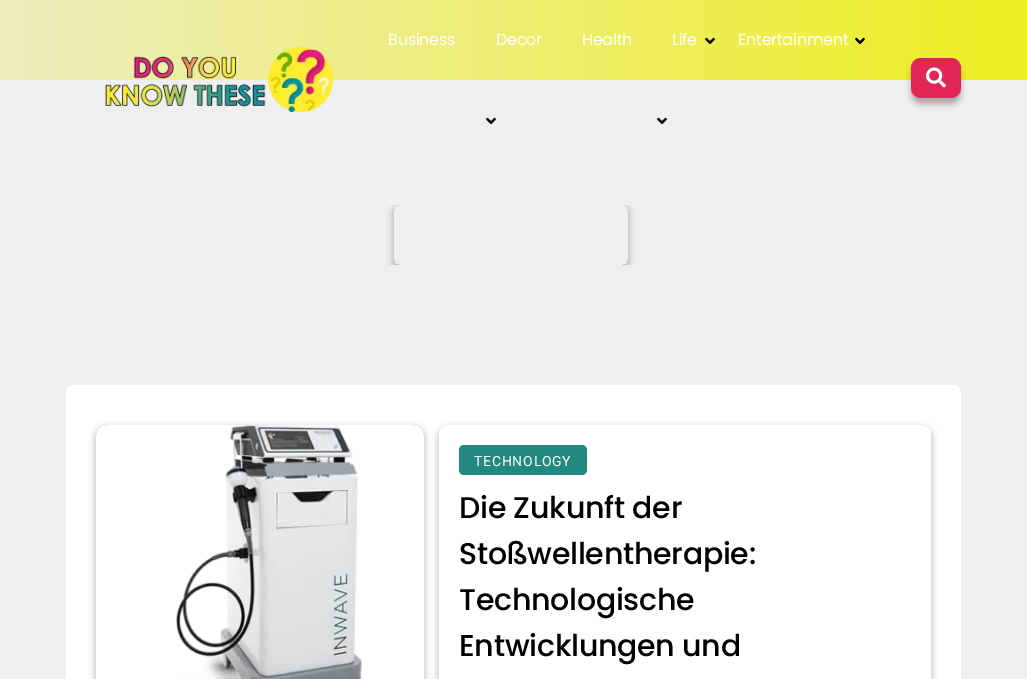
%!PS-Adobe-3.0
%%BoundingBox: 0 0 1027 679
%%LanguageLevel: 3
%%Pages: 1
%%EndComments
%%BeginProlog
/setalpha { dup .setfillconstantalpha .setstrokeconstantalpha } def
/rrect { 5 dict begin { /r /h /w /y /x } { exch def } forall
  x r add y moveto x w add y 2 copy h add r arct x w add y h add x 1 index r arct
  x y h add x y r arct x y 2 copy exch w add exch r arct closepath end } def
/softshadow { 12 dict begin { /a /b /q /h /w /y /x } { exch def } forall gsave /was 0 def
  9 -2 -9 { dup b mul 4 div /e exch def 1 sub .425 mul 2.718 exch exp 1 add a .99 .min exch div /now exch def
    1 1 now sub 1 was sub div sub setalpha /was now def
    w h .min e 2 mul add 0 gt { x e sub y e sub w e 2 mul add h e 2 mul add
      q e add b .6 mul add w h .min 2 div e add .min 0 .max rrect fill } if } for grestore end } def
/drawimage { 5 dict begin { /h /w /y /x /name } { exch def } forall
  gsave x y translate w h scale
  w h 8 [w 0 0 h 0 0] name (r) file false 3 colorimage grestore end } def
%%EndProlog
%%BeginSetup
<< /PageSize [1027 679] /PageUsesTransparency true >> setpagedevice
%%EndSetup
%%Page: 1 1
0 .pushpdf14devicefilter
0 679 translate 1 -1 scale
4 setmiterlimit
0.937 setgray
0 0 1027 679 rectfill
gsave newpath 0 0 moveto 1027 0 lineto 1027 80 lineto 0 80 lineto closepath clip newpath
<< /ShadingType 2 /ColorSpace /DeviceRGB /Coords [1027 40 0 40] /Extend [true true] /Function << /FunctionType 2 /Domain [0 1] /C0 [0.933 0.933 0.133] /C1 [0.929 0.929 0.753] /N 1 >> >> shfill grestore
(images/1.raw) 705 37 10 8 drawimage
(images/2.raw) 855 37 10 8 drawimage
(images/3.raw) 486 117 10 8 drawimage
(images/3.raw) 657 117 10 8 drawimage
(images/4.raw) 105 47 228 65 drawimage
0.012 setgray
911 64 50 40 10 3 0.3 softshadow
0.886 0.141 0.341 setrgbcolor
911 58 50 40 10 rrect fill
(images/5.raw) 926 67 20 21 drawimage
gsave
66 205 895 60 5 rrect clip newpath
newpath 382 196 moveto 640 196 lineto 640 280 lineto 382 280 lineto closepath 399 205 moveto 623 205 lineto 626 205 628 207 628 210 curveto 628 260 lineto 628 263 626 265 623 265 curveto 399 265 lineto 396 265 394 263 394 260 curveto 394 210 lineto 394 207 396 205 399 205 curveto closepath eoclip newpath
0 setgray
392 206 238 64 7 3 0.2 softshadow
grestore
1 setgray
66 385 895 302 8 rrect fill
gsave
newpath 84 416 moveto 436 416 lineto 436 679 lineto 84 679 lineto closepath 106 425 moveto 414 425 lineto 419.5 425 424 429.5 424 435 curveto 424 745 lineto 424 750.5 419.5 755 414 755 curveto 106 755 lineto 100.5 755 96 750.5 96 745 curveto 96 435 lineto 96 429.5 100.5 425 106 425 curveto closepath eoclip newpath
0 setgray
94 426 332 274 12 3 0.2 softshadow
grestore
(images/6.raw) 176 425 188 254 drawimage
0 setgray
437 426 496 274 12 3 0.2 softshadow
1 setgray
439 425 492 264 10 rrect fill
0.129 0.537 0.494 setrgbcolor
459 445 128 30 5 rrect fill
/Poppins-Regular [16 0 0 -16 0 0] selectfont
1 setgray
388 45 moveto -0.25 0 (Business) ashow
496 45 moveto -0.25 0 (Decor) ashow
582 45 moveto -0.25 0 (Health) ashow
672 45 moveto -0.25 0 (Life) ashow
738 45 moveto -0.25 0 (Entertainment) ashow
/Roboto-Regular [14 0 0 -14 0 0] selectfont
474 466 moveto 0.75 0 (TECHNOLOGY) ashow
/Poppins-Medium [30 0 0 -30 0 0] selectfont
0 setgray
459 518 moveto -0.25 0 (Die Zukunft der) ashow
459 564 moveto -0.25 0 (Stoßwellentherapie:) ashow
459 610 moveto -0.25 0 (Technologische) ashow
459 656 moveto -0.25 0 (Entwicklungen und) ashow
.poppdf14devicefilter showpage
%%EOF
